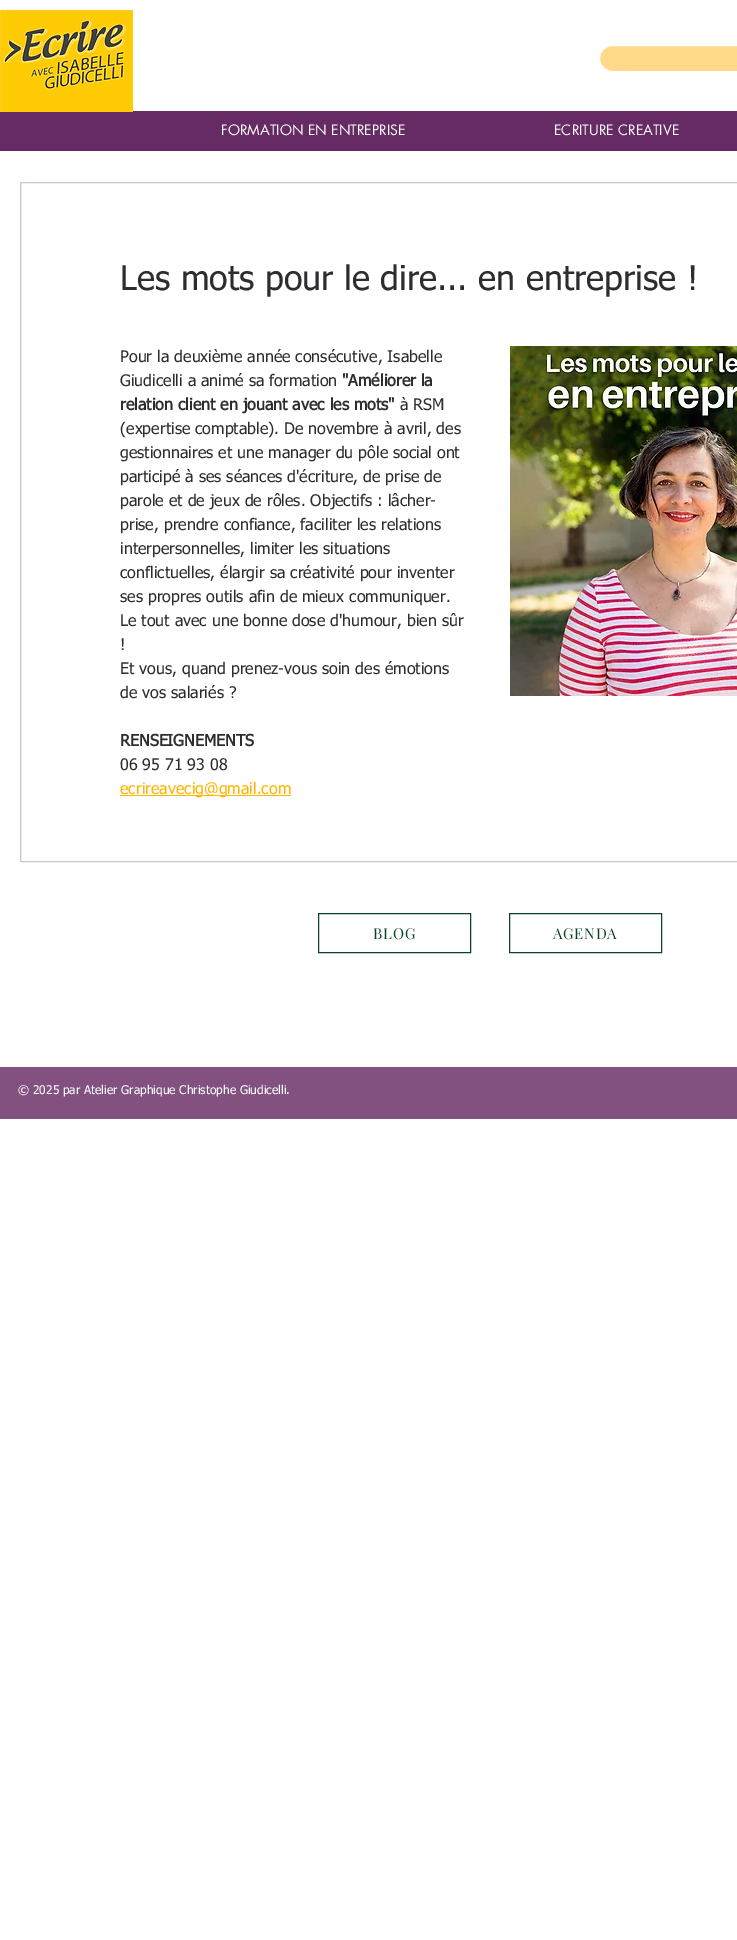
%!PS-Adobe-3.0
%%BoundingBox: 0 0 737 1940
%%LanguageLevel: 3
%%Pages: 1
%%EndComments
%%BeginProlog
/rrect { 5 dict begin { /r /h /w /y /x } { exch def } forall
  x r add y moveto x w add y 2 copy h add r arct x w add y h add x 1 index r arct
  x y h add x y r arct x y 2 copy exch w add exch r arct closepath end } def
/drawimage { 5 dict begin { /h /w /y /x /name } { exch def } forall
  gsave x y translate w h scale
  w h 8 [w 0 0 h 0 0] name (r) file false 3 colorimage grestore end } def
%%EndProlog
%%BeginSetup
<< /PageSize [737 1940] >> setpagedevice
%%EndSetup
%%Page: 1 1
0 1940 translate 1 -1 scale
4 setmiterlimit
1 setgray
0 0 737 1940 rectfill
0.4 0.169 0.392 setrgbcolor
0 111 737 40 rectfill
(images/1.raw) 0 10 133 102 drawimage
1 0.859 0.537 setrgbcolor
599.5 45.5 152 26 13 rrect gsave fill grestore
1 setgray
stroke
0.776 0.788 0.804 setrgbcolor
20.5 182.5 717 679 rectstroke
(images/2.raw) 510 346 227 350 drawimage
1 0.706 0 setrgbcolor
120 795 171 1 rectfill
0.047 0.267 0.149 setrgbcolor
318.5 913.5 152 39 rectstroke
509.5 913.5 152 39 rectstroke
0.51 0.318 0.502 setrgbcolor
0 1067 737 52 rectfill
/futura-Regular [14 0 0 -14 0 0] selectfont
1 setgray
221 135 moveto (FORMATION EN ENTREPRISE) show
554 135 moveto (ECRITURE CREATIVE) show
/tahoma-Regular [34 0 0 -34 0 0] selectfont
0.176 0.176 0.184 setrgbcolor
120 290 moveto (Les mots pour le dire... en entreprise !) show
/tahoma-Regular [16 0 0 -16 0 0] selectfont
120 362 moveto (Pour la deuxième année consécutive, Isabelle) show
120 386 moveto (Giudicelli a animé sa formation) show
/tahoma-Bold [16 0 0 -16 0 0] selectfont
342 386 moveto ("Améliorer la) show
120 410 moveto (relation client en jouant avec les mots") show
/tahoma-Regular [16 0 0 -16 0 0] selectfont
400 410 moveto (à RSM) show
120 434 moveto (\(expertise comptable\). De novembre à avril, des) show
120 458 moveto (gestionnaires et une manager du pôle social ont) show
120 482 moveto (participé à ses séances d'écriture, de prise de) show
120 506 moveto (parole et de jeux de rôles. Objectifs : lâcher-) show
120 530 moveto (prise, prendre confiance, faciliter les relations) show
120 554 moveto (interpersonnelles, limiter les situations) show
120 578 moveto (conflictuelles, élargir sa créativité pour inventer) show
120 602 moveto (ses propres outils afin de mieux communiquer.) show
120 626 moveto (Le tout avec une bonne dose d'humour, bien sûr) show
120 650 moveto (!) show
120 674 moveto (Et vous, quand prenez-vous soin des émotions) show
120 698 moveto (de vos salariés ?) show
/tahoma-Bold [16 0 0 -16 0 0] selectfont
120 746 moveto (RENSEIGNEMENTS) show
/tahoma-Regular [16 0 0 -16 0 0] selectfont
120 770 moveto (06 95 71 93 08) show
1 0.706 0 setrgbcolor
120 794 moveto (ecrireavecig@gmail.com) show
/PlayfairDisplay-Regular [15 0 0 -15 0 0] selectfont
0.047 0.267 0.149 setrgbcolor
373 939 moveto 0.75 0 (BLOG) ashow
553 939 moveto 0.75 0 (AGENDA) ashow
/tahoma-Regular [12 0 0 -12 0 0] selectfont
1 setgray
18 1094 moveto (© 2025 par Atelier Graphique Christophe Giudicelli.) show
showpage
%%EOF
